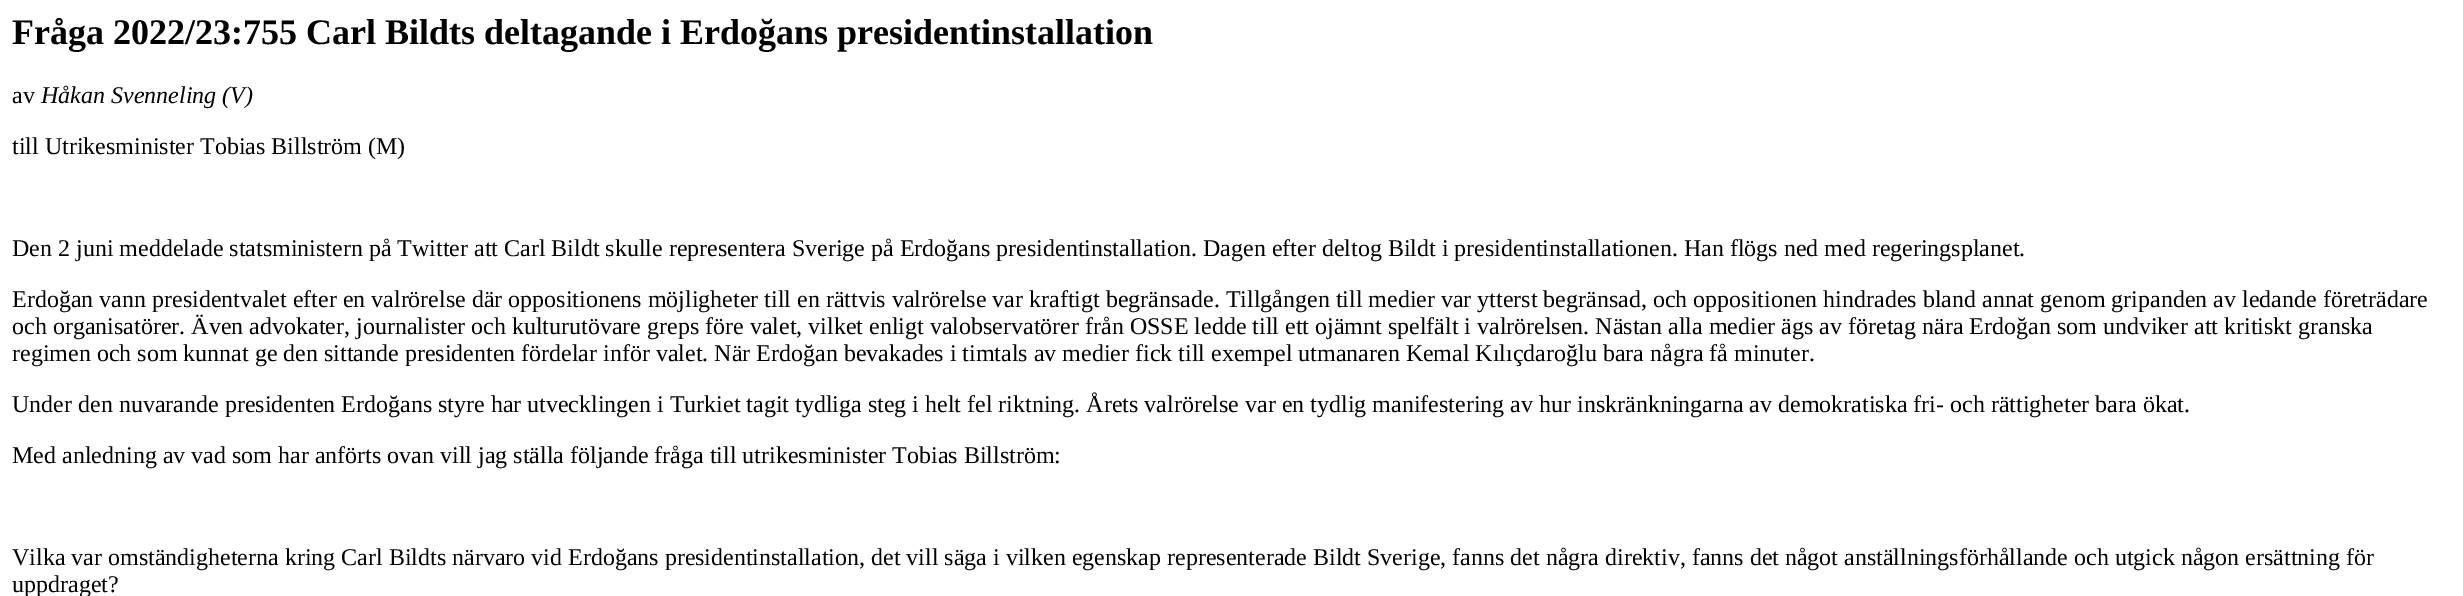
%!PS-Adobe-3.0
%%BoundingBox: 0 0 2463 596
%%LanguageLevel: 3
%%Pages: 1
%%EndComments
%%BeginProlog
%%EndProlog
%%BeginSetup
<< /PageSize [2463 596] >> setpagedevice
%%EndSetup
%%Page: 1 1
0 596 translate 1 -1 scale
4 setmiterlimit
1 setgray
0 0 2463 596 rectfill
/LiberationSerif-Bold [36 0 0 -36 0 0] selectfont
0 setgray
12 44 moveto (Fråga 2022/23:755 Carl Bildts deltagande i Erdoğans presidentinstallation) show
/LiberationSerif-Regular [24 0 0 -24 0 0] selectfont
12 103 moveto (av) show
/LiberationSerif-Italic [24 0 0 -24 0 0] selectfont
41 103 moveto (Håkan Svenneling \(V\)) show
/LiberationSerif-Regular [24 0 0 -24 0 0] selectfont
12 154 moveto (till Utrikesminister Tobias Billström \(M\)) show
12 256 moveto (Den 2 juni meddelade statsministern på Twitter att Carl Bildt skulle representera Sverige på Erdoğans presidentinstallation. Dagen efter deltog Bildt i presidentinstallationen. Han flögs ned med regeringsplanet.) show
12 307 moveto (Erdoğan vann presidentvalet efter en valrörelse där oppositionens möjligheter till en rättvis valrörelse var kraftigt begränsade. Tillgången till medier var ytterst begränsad, och oppositionen hindrades bland annat genom gripanden av ledande företrädare) show
12 334 moveto (och organisatörer. Även advokater, journalister och kulturutövare greps före valet, vilket enligt valobservatörer från OSSE ledde till ett ojämnt spelfält i valrörelsen. Nästan alla medier ägs av företag nära Erdoğan som undviker att kritiskt granska) show
12 361 moveto (regimen och som kunnat ge den sittande presidenten fördelar inför valet. När Erdoğan bevakades i timtals av medier fick till exempel utmanaren Kemal Kılıçdaroğlu bara några få minuter.) show
12 412 moveto (Under den nuvarande presidenten Erdoğans styre har utvecklingen i Turkiet tagit tydliga steg i helt fel riktning. Årets valrörelse var en tydlig manifestering av hur inskränkningarna av demokratiska fri- och rättigheter bara ökat.) show
12 463 moveto (Med anledning av vad som har anförts ovan vill jag ställa följande fråga till utrikesminister Tobias Billström:) show
12 565 moveto (Vilka var omständigheterna kring Carl Bildts närvaro vid Erdoğans presidentinstallation, det vill säga i vilken egenskap representerade Bildt Sverige, fanns det några direktiv, fanns det något anställningsförhållande och utgick någon ersättning för) show
12 592 moveto (uppdraget?) show
showpage
%%EOF
